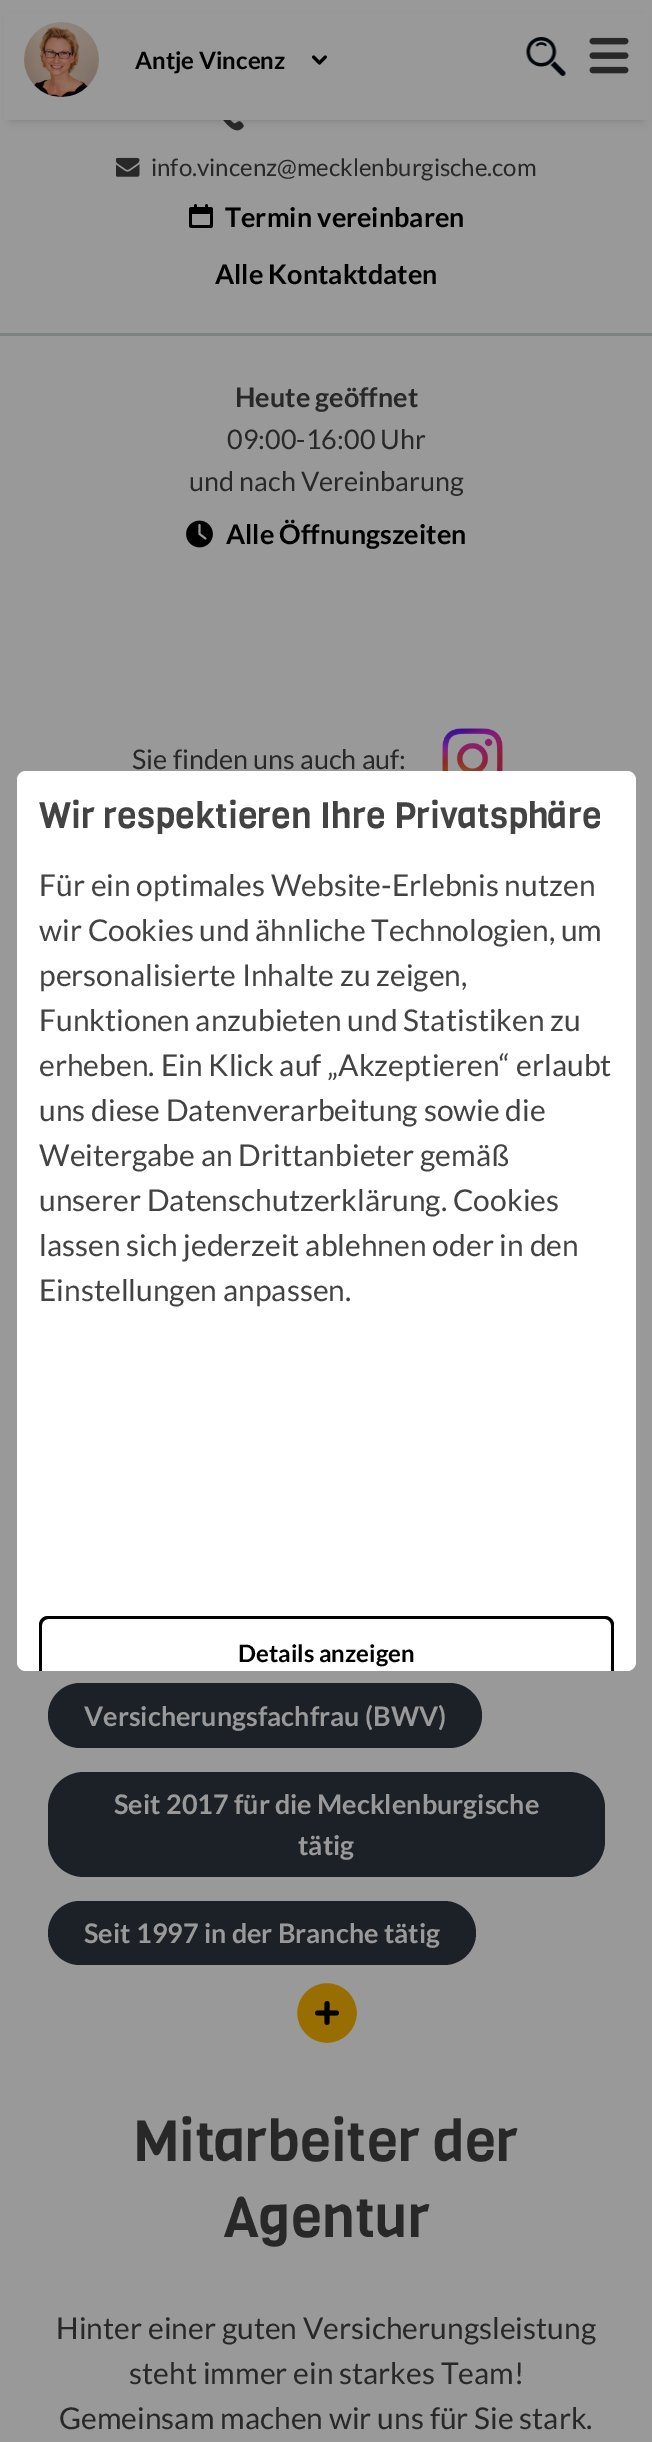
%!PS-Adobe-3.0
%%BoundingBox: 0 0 652 2442
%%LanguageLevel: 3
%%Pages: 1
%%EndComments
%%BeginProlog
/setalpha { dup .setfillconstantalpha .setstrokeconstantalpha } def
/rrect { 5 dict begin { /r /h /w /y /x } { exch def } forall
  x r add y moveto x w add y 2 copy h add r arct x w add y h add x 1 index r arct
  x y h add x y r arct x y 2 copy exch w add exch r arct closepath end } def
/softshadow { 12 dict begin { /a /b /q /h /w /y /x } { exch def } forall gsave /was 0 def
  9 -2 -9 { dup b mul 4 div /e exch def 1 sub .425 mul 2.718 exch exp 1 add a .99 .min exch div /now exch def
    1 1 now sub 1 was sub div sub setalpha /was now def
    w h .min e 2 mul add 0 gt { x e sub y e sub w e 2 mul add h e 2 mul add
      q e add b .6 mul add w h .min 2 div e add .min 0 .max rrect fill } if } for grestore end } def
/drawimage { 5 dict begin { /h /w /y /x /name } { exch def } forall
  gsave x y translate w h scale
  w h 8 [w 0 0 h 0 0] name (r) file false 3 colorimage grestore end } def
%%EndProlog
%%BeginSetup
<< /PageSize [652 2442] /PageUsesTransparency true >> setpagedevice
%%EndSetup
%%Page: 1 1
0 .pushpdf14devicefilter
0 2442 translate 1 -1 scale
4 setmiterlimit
0.6 setgray
0 0 652 2442 rectfill
(images/5.raw) 223 120 21 11 drawimage
0 0.024 0.043 setrgbcolor
11 21 631 99 0 5 0.2 softshadow
0.6 setgray
4 14 645 106 rectfill
(images/1.raw) 24 22 75 75 drawimage
(images/2.raw) 312 55 15 10 drawimage
(images/3.raw) 526 37 40 39 drawimage
(images/4.raw) 589 37 40 37 drawimage
0.49 0.514 0.51 setrgbcolor
0 333 652 3 rectfill
(images/6.raw) 116 157 24 20 drawimage
(images/7.raw) 189 204 24 24 drawimage
(images/8.raw) 186 520 27 28 drawimage
(images/9.raw) 442 728 61 43 drawimage
0.11 0.125 0.153 setrgbcolor
48 1683 434 65 32.5 rrect fill
48 1772 557 105 36 rrect fill
48 1901 428 64 32 rrect fill
0.6 0.431 0 setrgbcolor
newpath 327 2013 37.5 0 360 arc closepath gsave fill grestore
0.6 setgray
15 setlinewidth
stroke
(images/10.raw) 315 2001 24 24 drawimage
1 setgray
17 771 619 900 9 rrect fill
0 setgray
newpath 48 1616 moveto 43 1616 39 1620 39 1625 curveto 39 1671 lineto 42 1671 lineto 42 1625 lineto 42 1622 45 1619 48 1619 curveto 605 1619 lineto 608 1619 611 1622 611 1625 curveto 611 1671 lineto 614 1671 lineto 614 1625 lineto 614 1620 610 1616 605 1616 curveto closepath fill
/Lato-Bold [24 0 0 -24 0 0] selectfont
135 69 moveto (Antje Vincenz) show
/Lato-Regular [24 0 0 -24 0 0] selectfont
0.157 setgray
151 176 moveto (info.vincenz@mecklenburgische.com) show
/Lato-Bold [27 0 0 -27 0 0] selectfont
0 setgray
225 227 moveto (Termin vereinbaren) show
215 284 moveto (Alle Kontaktdaten) show
0.157 setgray
235 407 moveto (Heute geöffnet) show
/Lato-Regular [27 0 0 -27 0 0] selectfont
227 449 moveto (09:00-16:00 Uhr) show
189 491 moveto (und nach Vereinbarung) show
/Lato-Bold [27 0 0 -27 0 0] selectfont
0 setgray
226 544 moveto (Alle Öffnungszeiten) show
/Lato-Regular [27 0 0 -27 0 0] selectfont
0.157 setgray
132 769 moveto (Sie finden uns auch auf:) show
/Lato-Bold [27 0 0 -27 0 0] selectfont
0.6 setgray
84 1726 moveto (Versicherungsfachfrau \(BWV\)) show
114 1814 moveto (Seit 2017 für die Mecklenburgische) show
298 1855 moveto (tätig) show
84 1943 moveto (Seit 1997 in der Branche tätig) show
/Viga-Regular [57 0 0 -57 0 0] selectfont
0.157 setgray
133 2161 moveto (Mitarbeiter der) show
223 2237 moveto (Agentur) show
/Lato-Regular [30 0 0 -30 0 0] selectfont
56 2339 moveto (Hinter einer guten Versicherungsleistung) show
129 2384 moveto (steht immer ein starkes Team!) show
59 2429 moveto (Gemeinsam machen wir uns für Sie stark.) show
/Viga-Regular [36 0 0 -36 0 0] selectfont
0.263 setgray
39 828 moveto (Wir respektieren Ihre Privatsphäre) show
/Lato-Regular [30 0 0 -30 0 0] selectfont
39 896 moveto (Für ein optimales Website-Erlebnis nutzen) show
39 941 moveto (wir Cookies und ähnliche Technologien, um) show
39 986 moveto (personalisierte Inhalte zu zeigen,) show
39 1031 moveto (Funktionen anzubieten und Statistiken zu) show
39 1076 moveto (erheben. Ein Klick auf „Akzeptieren“ erlaubt) show
39 1121 moveto (uns diese Datenverarbeitung sowie die) show
39 1166 moveto (Weitergabe an Drittanbieter gemäß) show
39 1211 moveto (unserer Datenschutzerklärung. Cookies) show
39 1256 moveto (lassen sich jederzeit ablehnen oder in den) show
39 1301 moveto (Einstellungen anpassen.) show
/Lato-Bold [24 0 0 -24 0 0] selectfont
0 setgray
238 1662 moveto (Details anzeigen) show
.poppdf14devicefilter showpage
%%EOF
